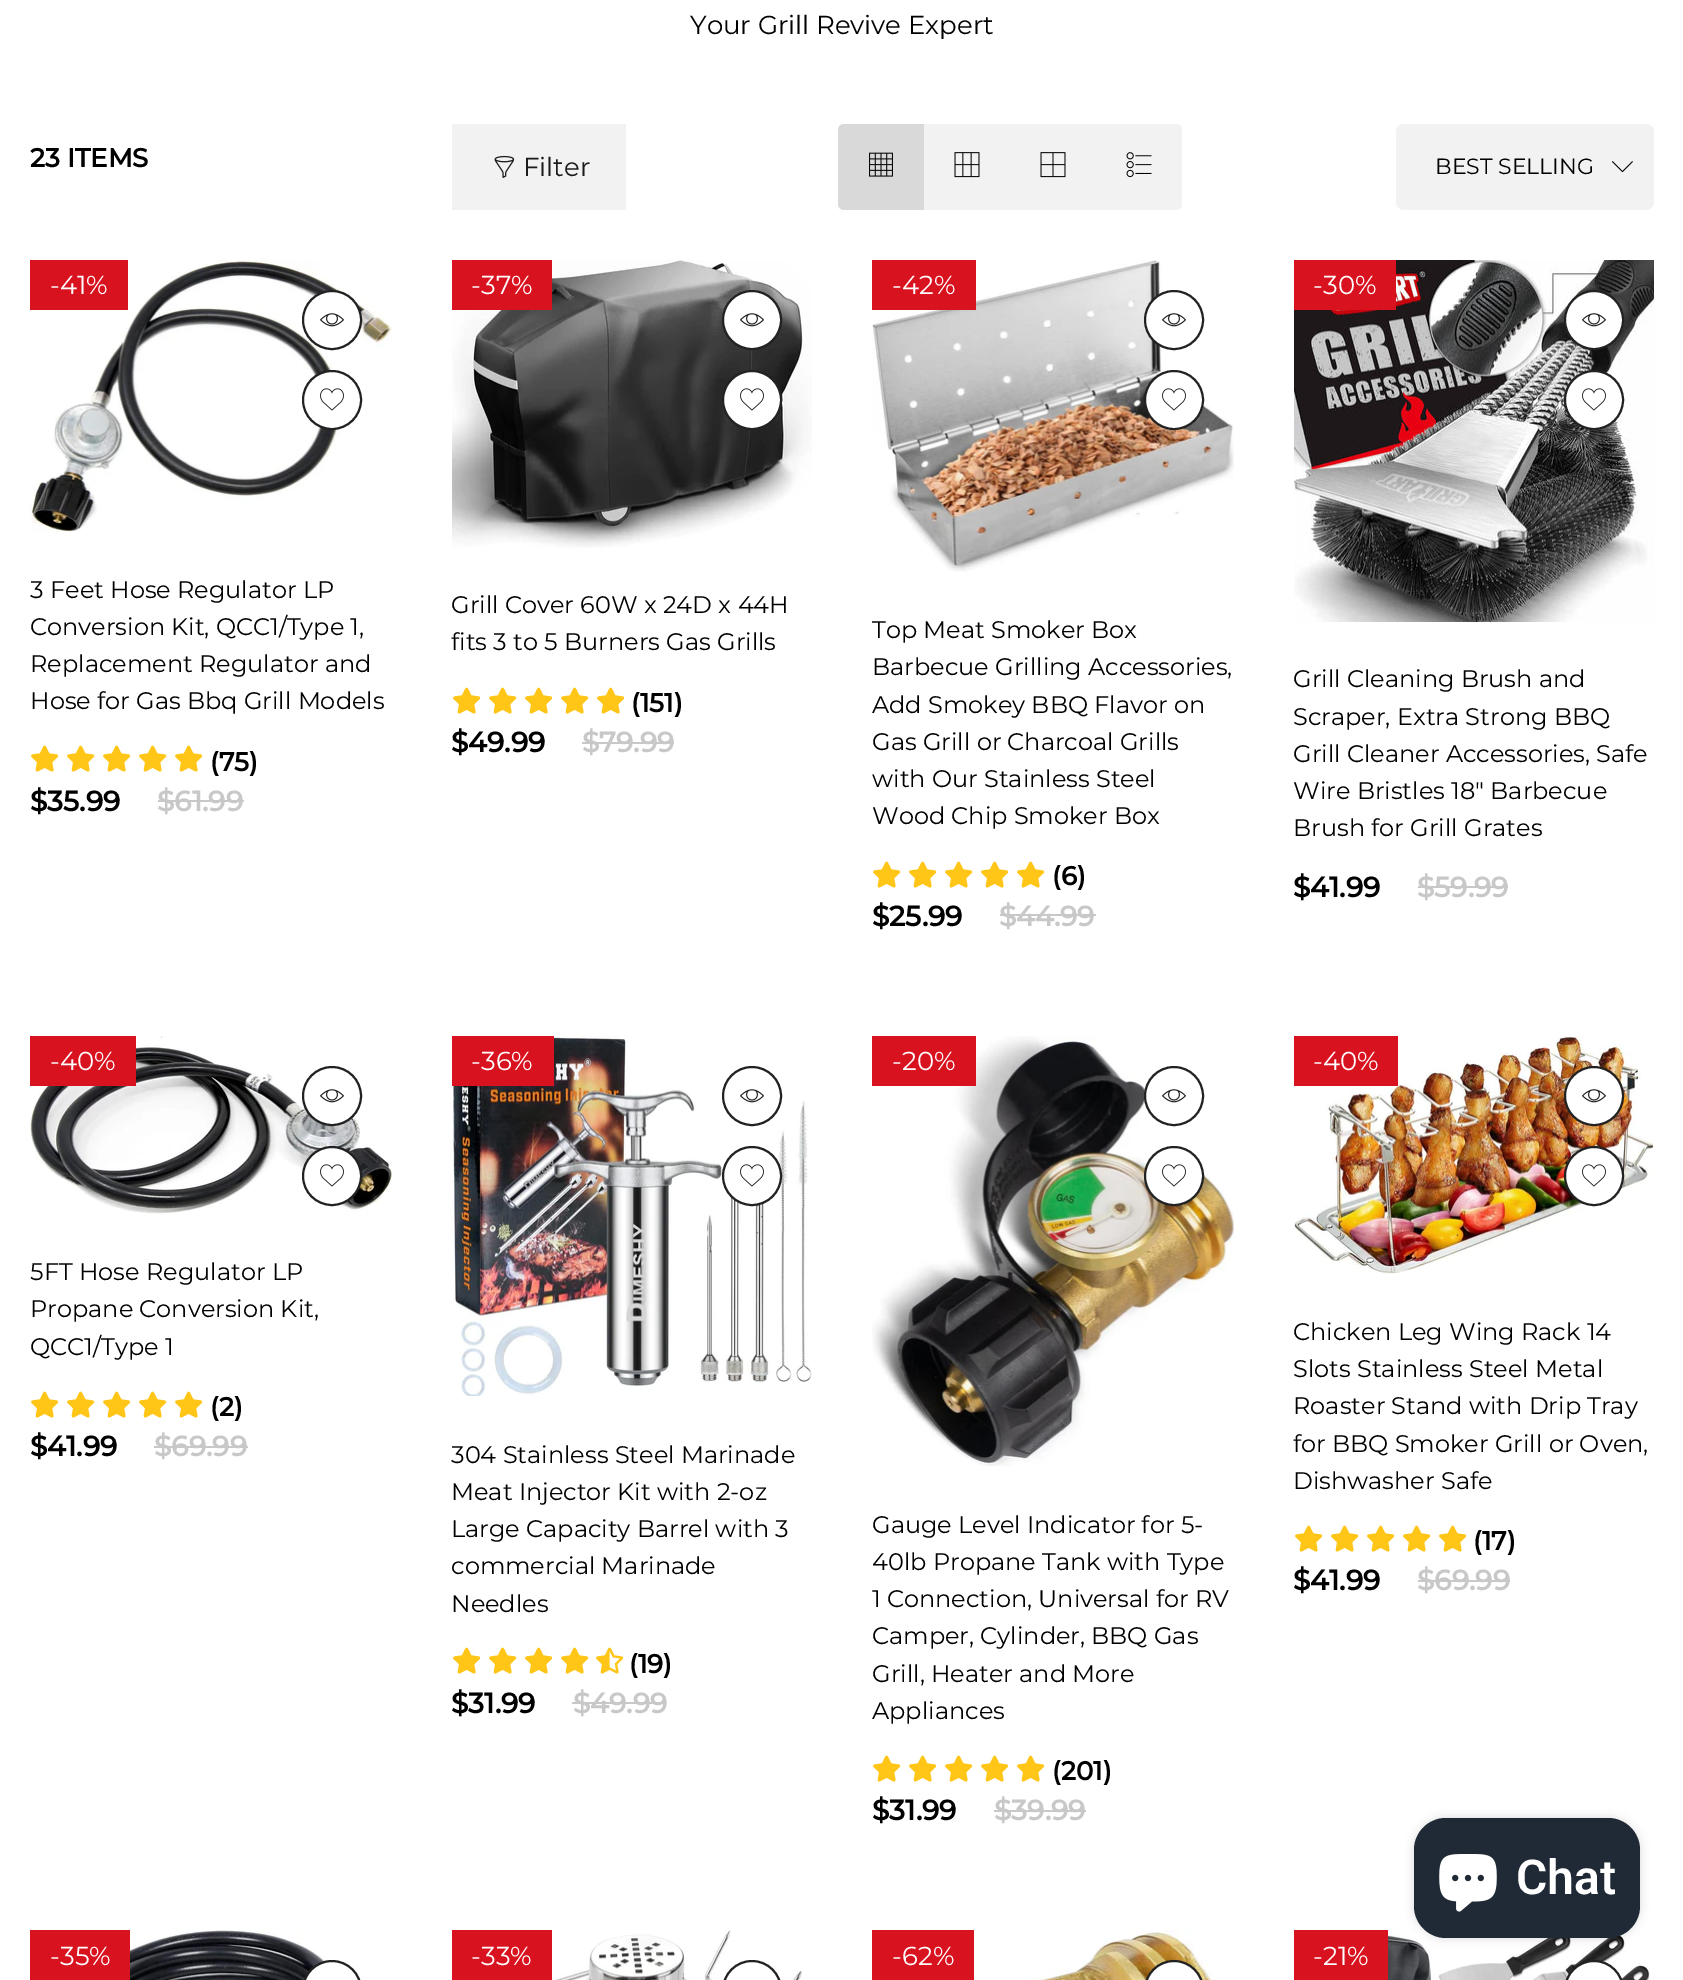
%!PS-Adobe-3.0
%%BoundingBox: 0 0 1683 1980
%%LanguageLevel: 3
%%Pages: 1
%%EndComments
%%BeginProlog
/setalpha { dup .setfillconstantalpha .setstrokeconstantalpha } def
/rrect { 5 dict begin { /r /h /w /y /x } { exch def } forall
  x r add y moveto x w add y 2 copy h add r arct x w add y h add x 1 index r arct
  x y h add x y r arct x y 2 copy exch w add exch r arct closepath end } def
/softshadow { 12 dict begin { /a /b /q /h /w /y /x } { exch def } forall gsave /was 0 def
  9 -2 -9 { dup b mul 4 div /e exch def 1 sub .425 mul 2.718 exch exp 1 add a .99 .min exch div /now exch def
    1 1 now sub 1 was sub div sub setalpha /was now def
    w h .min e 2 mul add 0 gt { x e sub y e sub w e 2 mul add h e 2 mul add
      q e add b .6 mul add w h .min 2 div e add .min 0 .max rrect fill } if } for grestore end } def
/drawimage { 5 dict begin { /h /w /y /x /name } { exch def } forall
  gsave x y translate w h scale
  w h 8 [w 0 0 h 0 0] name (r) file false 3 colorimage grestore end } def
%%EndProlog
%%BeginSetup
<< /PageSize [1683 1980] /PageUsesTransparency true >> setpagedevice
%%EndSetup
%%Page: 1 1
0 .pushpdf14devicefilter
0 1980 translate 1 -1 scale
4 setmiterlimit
1 setgray
0 0 1683 1980 rectfill
0.949 setgray
452 124 174 86 rectfill
(images/1.raw) 494 155 21 23 drawimage
0.851 setgray
newpath 844 124 moveto 924 124 lineto 924 210 lineto 844 210 lineto 840.5 210 838 207.5 838 204 curveto 838 130 lineto 838 126.5 840.5 124 844 124 curveto closepath fill
(images/2.raw) 869 152 24 25 drawimage
0.949 setgray
924 124 172 86 rectfill
(images/3.raw) 954 152 26 26 drawimage
newpath 1096 124 moveto 1176 124 lineto 1179.5 124 1182 126.5 1182 130 curveto 1182 204 lineto 1182 207.5 1179.5 210 1176 210 curveto 1096 210 lineto closepath fill
(images/4.raw) 1126 152 26 26 drawimage
(images/5.raw) 1040 152 26 26 drawimage
1396 124 258 86 8 rrect fill
(images/6.raw) 1612 161 21 12 drawimage
(images/7.raw) 30 260 362 272 drawimage
0.851 0.071 0.122 setrgbcolor
30 260 98 50 rectfill
1 setgray
newpath 332 320 29 0 360 arc closepath gsave fill grestore
0.133 setgray
2 setlinewidth
stroke
(images/8.raw) 320 313 24 14 drawimage
1 setgray
newpath 332 400 29 0 360 arc closepath gsave fill grestore
0.133 setgray
stroke
(images/9.raw) 320 388 24 23 drawimage
(images/10.raw) 31 745 28 27 drawimage
(images/10.raw) 67 745 28 27 drawimage
(images/10.raw) 103 745 28 27 drawimage
(images/10.raw) 139 745 28 27 drawimage
(images/10.raw) 175 745 28 27 drawimage
0.784 setgray
158 800 86 2 rectfill
(images/11.raw) 452 260 360 288 drawimage
0.851 0.071 0.122 setrgbcolor
452 260 100 50 rectfill
1 setgray
newpath 752 320 29 0 360 arc closepath gsave fill grestore
0.133 setgray
stroke
(images/8.raw) 740 313 24 14 drawimage
1 setgray
newpath 752 400 29 0 360 arc closepath gsave fill grestore
0.133 setgray
stroke
(images/9.raw) 740 388 24 23 drawimage
(images/10.raw) 453 687 28 27 drawimage
(images/10.raw) 489 687 28 27 drawimage
(images/10.raw) 525 687 28 27 drawimage
(images/10.raw) 561 687 28 27 drawimage
(images/10.raw) 597 687 28 27 drawimage
0.784 setgray
582 742 92 2 rectfill
(images/12.raw) 872 260 362 312 drawimage
0.851 0.071 0.122 setrgbcolor
872 260 104 50 rectfill
1 setgray
newpath 1174 320 29 0 360 arc closepath gsave fill grestore
0.133 setgray
stroke
(images/8.raw) 1162 313 24 14 drawimage
1 setgray
newpath 1174 400 29 0 360 arc closepath gsave fill grestore
0.133 setgray
stroke
(images/9.raw) 1162 388 24 23 drawimage
(images/10.raw) 873 861 28 27 drawimage
(images/10.raw) 909 861 28 27 drawimage
(images/10.raw) 945 861 28 27 drawimage
(images/10.raw) 981 861 28 27 drawimage
(images/10.raw) 1017 861 28 27 drawimage
0.784 setgray
1000 914 96 2 rectfill
(images/13.raw) 1294 260 360 362 drawimage
0.851 0.071 0.122 setrgbcolor
1294 260 102 50 rectfill
1 setgray
newpath 1594 320 29 0 360 arc closepath gsave fill grestore
0.133 setgray
stroke
(images/8.raw) 1582 313 24 14 drawimage
1 setgray
newpath 1594 400 29 0 360 arc closepath gsave fill grestore
0.133 setgray
stroke
(images/9.raw) 1582 388 24 23 drawimage
0.784 setgray
1418 886 90 2 rectfill
(images/14.raw) 30 1036 362 178 drawimage
0.851 0.071 0.122 setrgbcolor
30 1036 106 50 rectfill
1 setgray
newpath 332 1096 29 0 360 arc closepath gsave fill grestore
0.133 setgray
stroke
(images/8.raw) 320 1089 24 14 drawimage
1 setgray
newpath 332 1176 29 0 360 arc closepath gsave fill grestore
0.133 setgray
stroke
(images/9.raw) 320 1164 24 23 drawimage
(images/10.raw) 31 1391 28 27 drawimage
(images/10.raw) 67 1391 28 27 drawimage
(images/10.raw) 103 1391 28 27 drawimage
(images/10.raw) 139 1391 28 27 drawimage
(images/10.raw) 175 1391 28 27 drawimage
0.784 setgray
154 1446 94 2 rectfill
(images/15.raw) 452 1036 360 360 drawimage
0.851 0.071 0.122 setrgbcolor
452 1036 102 50 rectfill
0.133 setgray
newpath 752 1096 29 0 360 arc closepath stroke
(images/8.raw) 740 1089 24 14 drawimage
1 setgray
newpath 752 1176 29 0 360 arc closepath gsave fill grestore
0.133 setgray
stroke
(images/9.raw) 740 1164 24 23 drawimage
(images/10.raw) 453 1647 28 27 drawimage
(images/10.raw) 489 1647 28 27 drawimage
(images/10.raw) 525 1647 28 27 drawimage
(images/10.raw) 561 1647 28 27 drawimage
(images/16.raw) 596 1647 28 27 drawimage
0.784 setgray
572 1702 94 2 rectfill
(images/17.raw) 872 1036 362 430 drawimage
0.851 0.071 0.122 setrgbcolor
872 1036 104 50 rectfill
1 setgray
newpath 1174 1096 29 0 360 arc closepath gsave fill grestore
0.133 setgray
stroke
(images/8.raw) 1162 1089 24 14 drawimage
1 setgray
newpath 1174 1176 29 0 360 arc closepath gsave fill grestore
0.133 setgray
stroke
(images/9.raw) 1162 1164 24 23 drawimage
(images/10.raw) 873 1755 28 27 drawimage
(images/10.raw) 909 1755 28 27 drawimage
(images/10.raw) 945 1755 28 27 drawimage
(images/10.raw) 981 1755 28 27 drawimage
(images/10.raw) 1017 1755 28 27 drawimage
0.784 setgray
994 1810 92 2 rectfill
(images/18.raw) 1294 1036 360 238 drawimage
0.851 0.071 0.122 setrgbcolor
1294 1036 104 50 rectfill
1 setgray
newpath 1594 1096 29 0 360 arc closepath gsave fill grestore
0.133 setgray
stroke
(images/8.raw) 1582 1089 24 14 drawimage
1 setgray
newpath 1594 1176 29 0 360 arc closepath gsave fill grestore
0.133 setgray
stroke
(images/9.raw) 1582 1164 24 23 drawimage
(images/10.raw) 1295 1525 28 27 drawimage
(images/10.raw) 1331 1525 28 27 drawimage
(images/10.raw) 1367 1525 28 27 drawimage
(images/10.raw) 1403 1525 28 27 drawimage
(images/10.raw) 1439 1525 28 27 drawimage
0.784 setgray
1418 1580 92 2 rectfill
0.851 0.071 0.122 setrgbcolor
30 1930 100 50 rectfill
(images/19.raw) 130 1930 209 50 drawimage
1 setgray
303 1961 58 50 29 rrect gsave fill grestore
0.133 setgray
stroke
0.851 0.071 0.122 setrgbcolor
452 1930 100 50 rectfill
(images/20.raw) 555 1930 247 50 drawimage
0.133 setgray
723 1961 58 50 29 rrect stroke
0.851 0.071 0.122 setrgbcolor
872 1930 102 50 rectfill
(images/21.raw) 1026 1930 186 50 drawimage
1 setgray
1145 1961 58 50 29 rrect gsave fill grestore
0.133 setgray
stroke
0.851 0.071 0.122 setrgbcolor
1294 1930 94 50 rectfill
(images/22.raw) 1388 1930 262 50 drawimage
1 setgray
1565 1961 58 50 29 rrect gsave fill grestore
0.133 setgray
stroke
0 setgray
1414 1818 226 120 32 5 0.15 softshadow
0.125 0.165 0.212 setrgbcolor
1414 1818 226 120 32 rrect fill
(images/23.raw) 1439 1854 58 58 drawimage
/Montserrat-Regular [26 0 0 -26 0 0] selectfont
0 setgray
690 34 moveto (Your Grill Revive Expert) show
/Montserrat-Bold [26 0 0 -26 0 0] selectfont
30 167 moveto (23 ITEMS) show
/Montserrat-Regular [26 0 0 -26 0 0] selectfont
0.11 setgray
523 176 moveto (Filter) show
/Montserrat-Regular [22 0 0 -22 0 0] selectfont
0 setgray
1435 174 moveto (BEST SELLING) show
/Montserrat-Regular [26 0 0 -26 0 0] selectfont
1 setgray
50 294 moveto (-41%) show
/Montserrat-Regular [24 0 0 -24 0 0] selectfont
0 setgray
30 598 moveto (3 Feet Hose Regulator LP) show
30 635 moveto (Conversion Kit, QCC1/Type 1,) show
30 672 moveto (Replacement Regulator and) show
30 709 moveto (Hose for Gas Bbq Grill Models) show
/Montserrat-Bold [26 0 0 -26 0 0] selectfont
210 771 moveto (\(75\)) show
/Montserrat-Bold [28 0 0 -28 0 0] selectfont
30 811 moveto ($35.99) show
0.784 setgray
157 811 moveto ($61.99) show
/Montserrat-Regular [26 0 0 -26 0 0] selectfont
1 setgray
471 294 moveto (-37%) show
/Montserrat-Regular [24 0 0 -24 0 0] selectfont
0 setgray
451 613 moveto (Grill Cover 60W x 24D x 44H) show
451 650 moveto (fits 3 to 5 Burners Gas Grills) show
/Montserrat-Bold [26 0 0 -26 0 0] selectfont
631 712 moveto (\(151\)) show
/Montserrat-Bold [28 0 0 -28 0 0] selectfont
451 752 moveto ($49.99) show
0.784 setgray
582 752 moveto ($79.99) show
/Montserrat-Regular [26 0 0 -26 0 0] selectfont
1 setgray
892 294 moveto (-42%) show
/Montserrat-Regular [24 0 0 -24 0 0] selectfont
0 setgray
872 638 moveto (Top Meat Smoker Box) show
872 675 moveto (Barbecue Grilling Accessories,) show
872 713 moveto (Add Smokey BBQ Flavor on) show
872 750 moveto (Gas Grill or Charcoal Grills) show
872 787 moveto (with Our Stainless Steel) show
872 824 moveto (Wood Chip Smoker Box) show
/Montserrat-Bold [26 0 0 -26 0 0] selectfont
1052 885 moveto (\(6\)) show
/Montserrat-Bold [28 0 0 -28 0 0] selectfont
872 926 moveto ($25.99) show
0.784 setgray
999 926 moveto ($44.99) show
/Montserrat-Regular [26 0 0 -26 0 0] selectfont
1 setgray
1313 294 moveto (-30%) show
/Montserrat-Regular [24 0 0 -24 0 0] selectfont
0 setgray
1293 687 moveto (Grill Cleaning Brush and) show
1293 725 moveto (Scraper, Extra Strong BBQ) show
1293 762 moveto (Grill Cleaner Accessories, Safe) show
1293 799 moveto (Wire Bristles 18" Barbecue) show
1293 836 moveto (Brush for Grill Grates) show
/Montserrat-Bold [28 0 0 -28 0 0] selectfont
1293 897 moveto ($41.99) show
0.784 setgray
1417 897 moveto ($59.99) show
/Montserrat-Regular [26 0 0 -26 0 0] selectfont
1 setgray
50 1070 moveto (-40%) show
/Montserrat-Regular [24 0 0 -24 0 0] selectfont
0 setgray
30 1280 moveto (5FT Hose Regulator LP) show
30 1317 moveto (Propane Conversion Kit,) show
30 1355 moveto (QCC1/Type 1) show
/Montserrat-Bold [26 0 0 -26 0 0] selectfont
210 1416 moveto (\(2\)) show
/Montserrat-Bold [28 0 0 -28 0 0] selectfont
30 1456 moveto ($41.99) show
0.784 setgray
154 1456 moveto ($69.99) show
/Montserrat-Regular [26 0 0 -26 0 0] selectfont
1 setgray
471 1070 moveto (-36%) show
/Montserrat-Regular [24 0 0 -24 0 0] selectfont
0 setgray
451 1463 moveto (304 Stainless Steel Marinade) show
451 1500 moveto (Meat Injector Kit with 2-oz) show
451 1537 moveto (Large Capacity Barrel with 3) show
451 1574 moveto (commercial Marinade) show
451 1612 moveto (Needles) show
/Montserrat-Bold [26 0 0 -26 0 0] selectfont
629 1673 moveto (\(19\)) show
/Montserrat-Bold [28 0 0 -28 0 0] selectfont
451 1713 moveto ($31.99) show
0.784 setgray
573 1713 moveto ($49.99) show
/Montserrat-Regular [26 0 0 -26 0 0] selectfont
1 setgray
892 1070 moveto (-20%) show
/Montserrat-Regular [24 0 0 -24 0 0] selectfont
0 setgray
872 1533 moveto (Gauge Level Indicator for 5-) show
872 1570 moveto (40lb Propane Tank with Type) show
872 1607 moveto (1 Connection, Universal for RV) show
872 1644 moveto (Camper, Cylinder, BBQ Gas) show
872 1682 moveto (Grill, Heater and More) show
872 1719 moveto (Appliances) show
/Montserrat-Bold [26 0 0 -26 0 0] selectfont
1052 1780 moveto (\(201\)) show
/Montserrat-Bold [28 0 0 -28 0 0] selectfont
872 1820 moveto ($31.99) show
0.784 setgray
994 1820 moveto ($39.99) show
/Montserrat-Regular [26 0 0 -26 0 0] selectfont
1 setgray
1313 1070 moveto (-40%) show
/Montserrat-Regular [24 0 0 -24 0 0] selectfont
0 setgray
1293 1340 moveto (Chicken Leg Wing Rack 14) show
1293 1377 moveto (Slots Stainless Steel Metal) show
1293 1414 moveto (Roaster Stand with Drip Tray) show
1293 1452 moveto (for BBQ Smoker Grill or Oven,) show
1293 1489 moveto (Dishwasher Safe) show
/Montserrat-Bold [26 0 0 -26 0 0] selectfont
1473 1550 moveto (\(17\)) show
/Montserrat-Bold [28 0 0 -28 0 0] selectfont
1293 1590 moveto ($41.99) show
0.784 setgray
1417 1590 moveto ($69.99) show
/Montserrat-Regular [26 0 0 -26 0 0] selectfont
1 setgray
50 1965 moveto (-35%) show
471 1965 moveto (-33%) show
892 1965 moveto (-62%) show
1313 1965 moveto (-21%) show
/Roboto-SemiBold [48 0 0 -48 0 0] selectfont
1516 1894 moveto (Chat) show
.poppdf14devicefilter showpage
%%EOF
